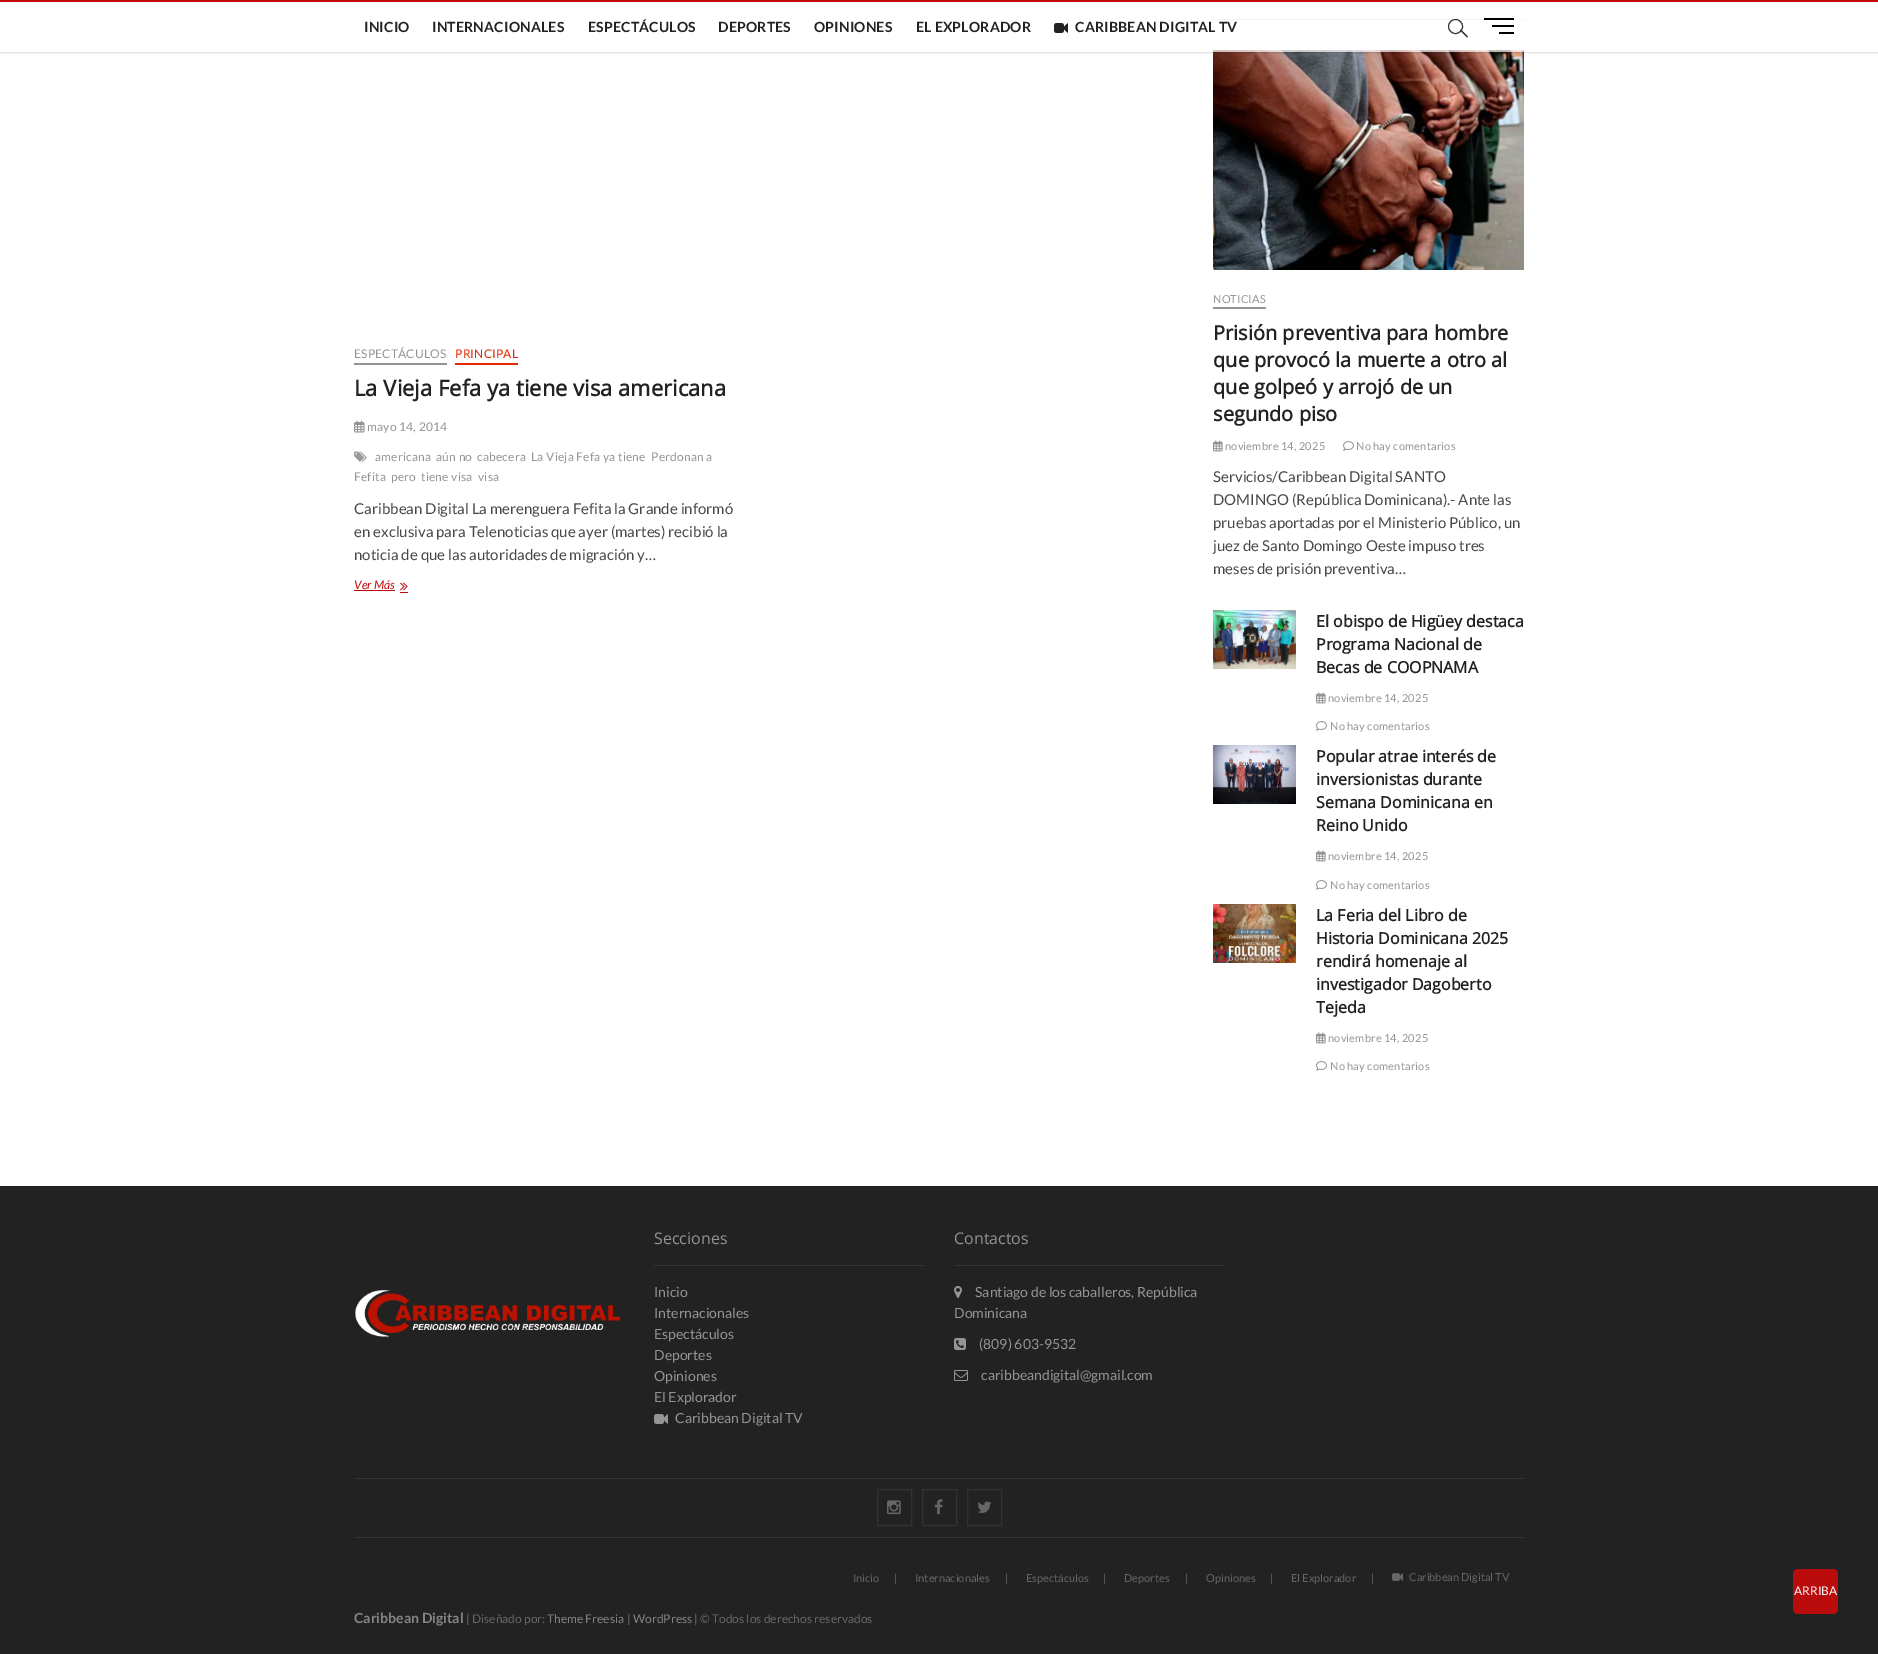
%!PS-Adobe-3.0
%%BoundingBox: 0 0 1878 1654
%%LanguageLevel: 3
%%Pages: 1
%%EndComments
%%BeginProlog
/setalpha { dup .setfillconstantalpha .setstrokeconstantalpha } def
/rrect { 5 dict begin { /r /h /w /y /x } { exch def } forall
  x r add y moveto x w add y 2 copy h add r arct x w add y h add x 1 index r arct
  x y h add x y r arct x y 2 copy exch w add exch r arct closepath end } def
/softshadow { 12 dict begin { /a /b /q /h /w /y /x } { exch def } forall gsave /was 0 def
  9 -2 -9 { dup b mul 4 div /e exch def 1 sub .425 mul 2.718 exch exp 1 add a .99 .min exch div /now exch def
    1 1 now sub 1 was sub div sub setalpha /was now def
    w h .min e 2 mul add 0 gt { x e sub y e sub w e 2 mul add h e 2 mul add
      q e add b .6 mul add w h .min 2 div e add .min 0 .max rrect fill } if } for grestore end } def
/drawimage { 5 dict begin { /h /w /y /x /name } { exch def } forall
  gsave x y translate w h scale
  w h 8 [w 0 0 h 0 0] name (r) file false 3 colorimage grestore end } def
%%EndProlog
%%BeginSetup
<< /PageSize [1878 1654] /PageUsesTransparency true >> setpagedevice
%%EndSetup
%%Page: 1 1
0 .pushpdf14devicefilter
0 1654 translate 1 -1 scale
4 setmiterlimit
1 setgray
0 0 1878 1654 rectfill
0.867 setgray
1213 19 311 1 rectfill
(images/5.raw) 1213 50 311 220 drawimage
gsave
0 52 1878 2 rectclip
0 setgray
0 1 1878 52 0 1 0.15 softshadow
grestore
0.7 setalpha
1 setgray
1213 19 311 33 rectfill
1 setalpha
0.757 0.043 0.043 setrgbcolor
0 0 1878 2 rectfill
(images/1.raw) 1054 23 14 10 drawimage
0.2 setgray
newpath 1455.5 26.5 7 0 360 arc closepath stroke
newpath 1460 30.5 moveto 1461 29.5 lineto 1468 36.5 lineto 1467 37.5 lineto closepath fill
0 setgray
1492 25 22 2 rectfill
1484 18 30 2 rectfill
1499 32 15 2 rectfill
0.58 setgray
354 363 93 2 rectfill
0.894 0.157 0 setrgbcolor
455 363 63 2 rectfill
(images/2.raw) 354 420 11 13 drawimage
(images/3.raw) 354 451 13 11 drawimage
0.757 0.043 0.043 setrgbcolor
354 590 41 1 rectfill
(images/4.raw) 400 582 8 9 drawimage
400 592 8 1 rectfill
0.58 setgray
1213 307 53 2 rectfill
(images/6.raw) 1213 440 10 12 drawimage
(images/7.raw) 1343 441 11 10 drawimage
(images/8.raw) 1213 610 83 59 drawimage
(images/6.raw) 1316 692 10 12 drawimage
(images/7.raw) 1316 721 11 10 drawimage
(images/9.raw) 1213 745 83 59 drawimage
(images/6.raw) 1316 850 10 12 drawimage
(images/7.raw) 1316 880 11 10 drawimage
(images/10.raw) 1213 904 83 59 drawimage
(images/6.raw) 1316 1032 10 12 drawimage
(images/7.raw) 1316 1061 11 10 drawimage
0.133 setgray
0 1187 1878 467 rectfill
0.125 setgray
0 1186 1878 1 rectfill
(images/11.raw) 355 1290 266 47 drawimage
0.2 setgray
654 1265 270 1 rectfill
(images/12.raw) 654 1414 14 10 drawimage
954 1265 270 1 rectfill
(images/13.raw) 954 1286 8 12 drawimage
(images/14.raw) 954 1338 12 12 drawimage
(images/15.raw) 954 1370 14 11 drawimage
354 1478 1170 1 rectfill
354 1537 1170 1 rectfill
877.5 1489.5 34 36 rectstroke
(images/16.raw) 887 1500 14 15 drawimage
922.5 1489.5 34 36 rectstroke
(images/17.raw) 934 1499 9 16 drawimage
967.5 1489.5 34 36 rectstroke
(images/18.raw) 977 1501 15 12 drawimage
(images/19.raw) 1392 1573 11 8 drawimage
0.729 0.047 0.047 setrgbcolor
1793 1569 45 45 5 rrect fill
/Lato-Bold [14 0 0 -14 0 0] selectfont
0.133 setgray
364 32 moveto 0.2 0 (INICIO) ashow
432 32 moveto 0.2 0 (INTERNACIONALES) ashow
588 32 moveto 0.2 0 (ESPECTÁCULOS) ashow
718 32 moveto 0.2 0 (DEPORTES) ashow
814 32 moveto 0.2 0 (OPINIONES) ashow
916 32 moveto 0.2 0 (EL EXPLORADOR) ashow
1075 32 moveto 0.2 0 (CARIBBEAN DIGITAL TV) ashow
/Lato-Regular [12 0 0 -12 0 0] selectfont
0.58 setgray
354 358 moveto 0.2 0 (ESPECTÁCULOS) ashow
0.894 0.157 0 setrgbcolor
455 358 moveto 0.2 0 (PRINCIPAL) ashow
/OpenSans-Bold [22 0 0 -22 0 0] selectfont
0.133 setgray
354 396 moveto (La Vieja Fefa ya tiene visa americana) show
/Lato-Regular [12 0 0 -12 0 0] selectfont
0.58 setgray
367 431 moveto 0.2 0 (mayo 14, 2014) ashow
375 461 moveto 0.2 0 (americana) ashow
436 461 moveto 0.2 0 (aún no) ashow
477 461 moveto 0.2 0 (cabecera) ashow
531 461 moveto 0.2 0 (La Vieja Fefa ya tiene) ashow
651 461 moveto 0.2 0 (Perdonan a) ashow
354 481 moveto 0.2 0 (Fefita) ashow
391 481 moveto 0.2 0 (pero) ashow
421 481 moveto 0.2 0 (tiene visa) ashow
478 481 moveto 0.2 0 (visa) ashow
/Lato-Regular [15 0 0 -15 0 0] selectfont
0.282 setgray
354 514 moveto (Caribbean Digital La merenguera Fefita la Grande informó) show
354 537 moveto (en exclusiva para Telenoticias que ayer \(martes\) recibió la) show
354 560 moveto (noticia de que las autoridades de migración y…) show
/Lato-Italic [12 0 0 -12 0 0] selectfont
0.757 0.043 0.043 setrgbcolor
354 589 moveto (Ver Más) show
/Lato-Regular [11 0 0 -11 0 0] selectfont
0.58 setgray
1213 303 moveto 0.2 0 (NOTICIAS) ashow
/OpenSans-Bold [20 0 0 -20 0 0] selectfont
0.133 setgray
1213 340 moveto (Prisión preventiva para hombre) show
1213 367 moveto (que provocó la muerte a otro al) show
1213 394 moveto (que golpeó y arrojó de un) show
1213 421 moveto (segundo piso) show
/Lato-Regular [11 0 0 -11 0 0] selectfont
0.58 setgray
1225 450 moveto 0.2 0 (noviembre 14, 2025) ashow
1356 450 moveto 0.2 0 (No hay comentarios) ashow
/Lato-Regular [15 0 0 -15 0 0] selectfont
0.282 setgray
1213 482 moveto (Servicios/Caribbean Digital SANTO) show
1213 505 moveto (DOMINGO \(República Dominicana\).- Ante las) show
1213 528 moveto (pruebas aportadas por el Ministerio Público, un) show
1213 551 moveto (juez de Santo Domingo Oeste impuso tres) show
1213 574 moveto (meses de prisión preventiva…) show
/OpenSans-Bold [16 0 0 -16 0 0] selectfont
0.133 setgray
1316 627 moveto (El obispo de Higüey destaca) show
1316 650 moveto (Programa Nacional de) show
1316 673 moveto (Becas de COOPNAMA) show
/Lato-Regular [11 0 0 -11 0 0] selectfont
0.58 setgray
1328 702 moveto 0.2 0 (noviembre 14, 2025) ashow
1330 730 moveto 0.2 0 (No hay comentarios) ashow
/OpenSans-Bold [16 0 0 -16 0 0] selectfont
0.133 setgray
1316 762 moveto (Popular atrae interés de) show
1316 785 moveto (inversionistas durante) show
1316 808 moveto (Semana Dominicana en) show
1316 831 moveto (Reino Unido) show
/Lato-Regular [11 0 0 -11 0 0] selectfont
0.58 setgray
1328 860 moveto 0.2 0 (noviembre 14, 2025) ashow
1330 889 moveto 0.2 0 (No hay comentarios) ashow
/OpenSans-Bold [16 0 0 -16 0 0] selectfont
0.133 setgray
1316 921 moveto (La Feria del Libro de) show
1316 944 moveto (Historia Dominicana 2025) show
1316 967 moveto (rendirá homenaje al) show
1316 990 moveto (investigador Dagoberto) show
1316 1013 moveto (Tejeda) show
/Lato-Regular [11 0 0 -11 0 0] selectfont
0.58 setgray
1328 1042 moveto 0.2 0 (noviembre 14, 2025) ashow
1330 1070 moveto 0.2 0 (No hay comentarios) ashow
/OpenSans-Regular [16 0 0 -16 0 0] selectfont
654 1244 moveto (Secciones) show
/Lato-Regular [14 0 0 -14 0 0] selectfont
654 1297 moveto (Inicio) show
654 1318 moveto (Internacionales) show
654 1339 moveto (Espectáculos) show
654 1360 moveto (Deportes) show
654 1381 moveto (Opiniones) show
654 1402 moveto (El Explorador) show
675 1423 moveto (Caribbean Digital TV) show
/OpenSans-Regular [16 0 0 -16 0 0] selectfont
954 1244 moveto (Contactos) show
/Lato-Regular [14 0 0 -14 0 0] selectfont
975 1297 moveto (Santiago de los caballeros, República) show
954 1318 moveto (Dominicana) show
979 1349 moveto (\(809\) 603-9532) show
981 1380 moveto (caribbeandigital@gmail.com) show
/Lato-Regular [11 0 0 -11 0 0] selectfont
0.4 setgray
853 1582 moveto (Inicio) show
894 1582 moveto (|) show
915 1582 moveto (Internacionales) show
1005 1582 moveto (|) show
1026 1582 moveto (Espectáculos) show
1103 1582 moveto (|) show
1124 1582 moveto (Deportes) show
1185 1582 moveto (|) show
1206 1582 moveto (Opiniones) show
1270 1582 moveto (|) show
1291 1582 moveto (El Explorador) show
1371 1582 moveto (|) show
1409 1581 moveto (Caribbean Digital TV) show
/Lato-Bold [14 0 0 -14 0 0] selectfont
0.518 setgray
354 1623 moveto (Caribbean Digital) show
/Lato-Regular [12 0 0 -12 0 0] selectfont
0.4 setgray
466 1623 moveto (| Diseñado por:) show
0.518 setgray
547 1623 moveto (Theme Freesia) show
0.4 setgray
627 1623 moveto (|) show
0.518 setgray
633 1623 moveto (WordPress) show
0.4 setgray
694 1623 moveto (| © Todos los derechos reservados) show
0.961 setgray
1794 1595 moveto (ARRIBA) show
.poppdf14devicefilter showpage
%%EOF
